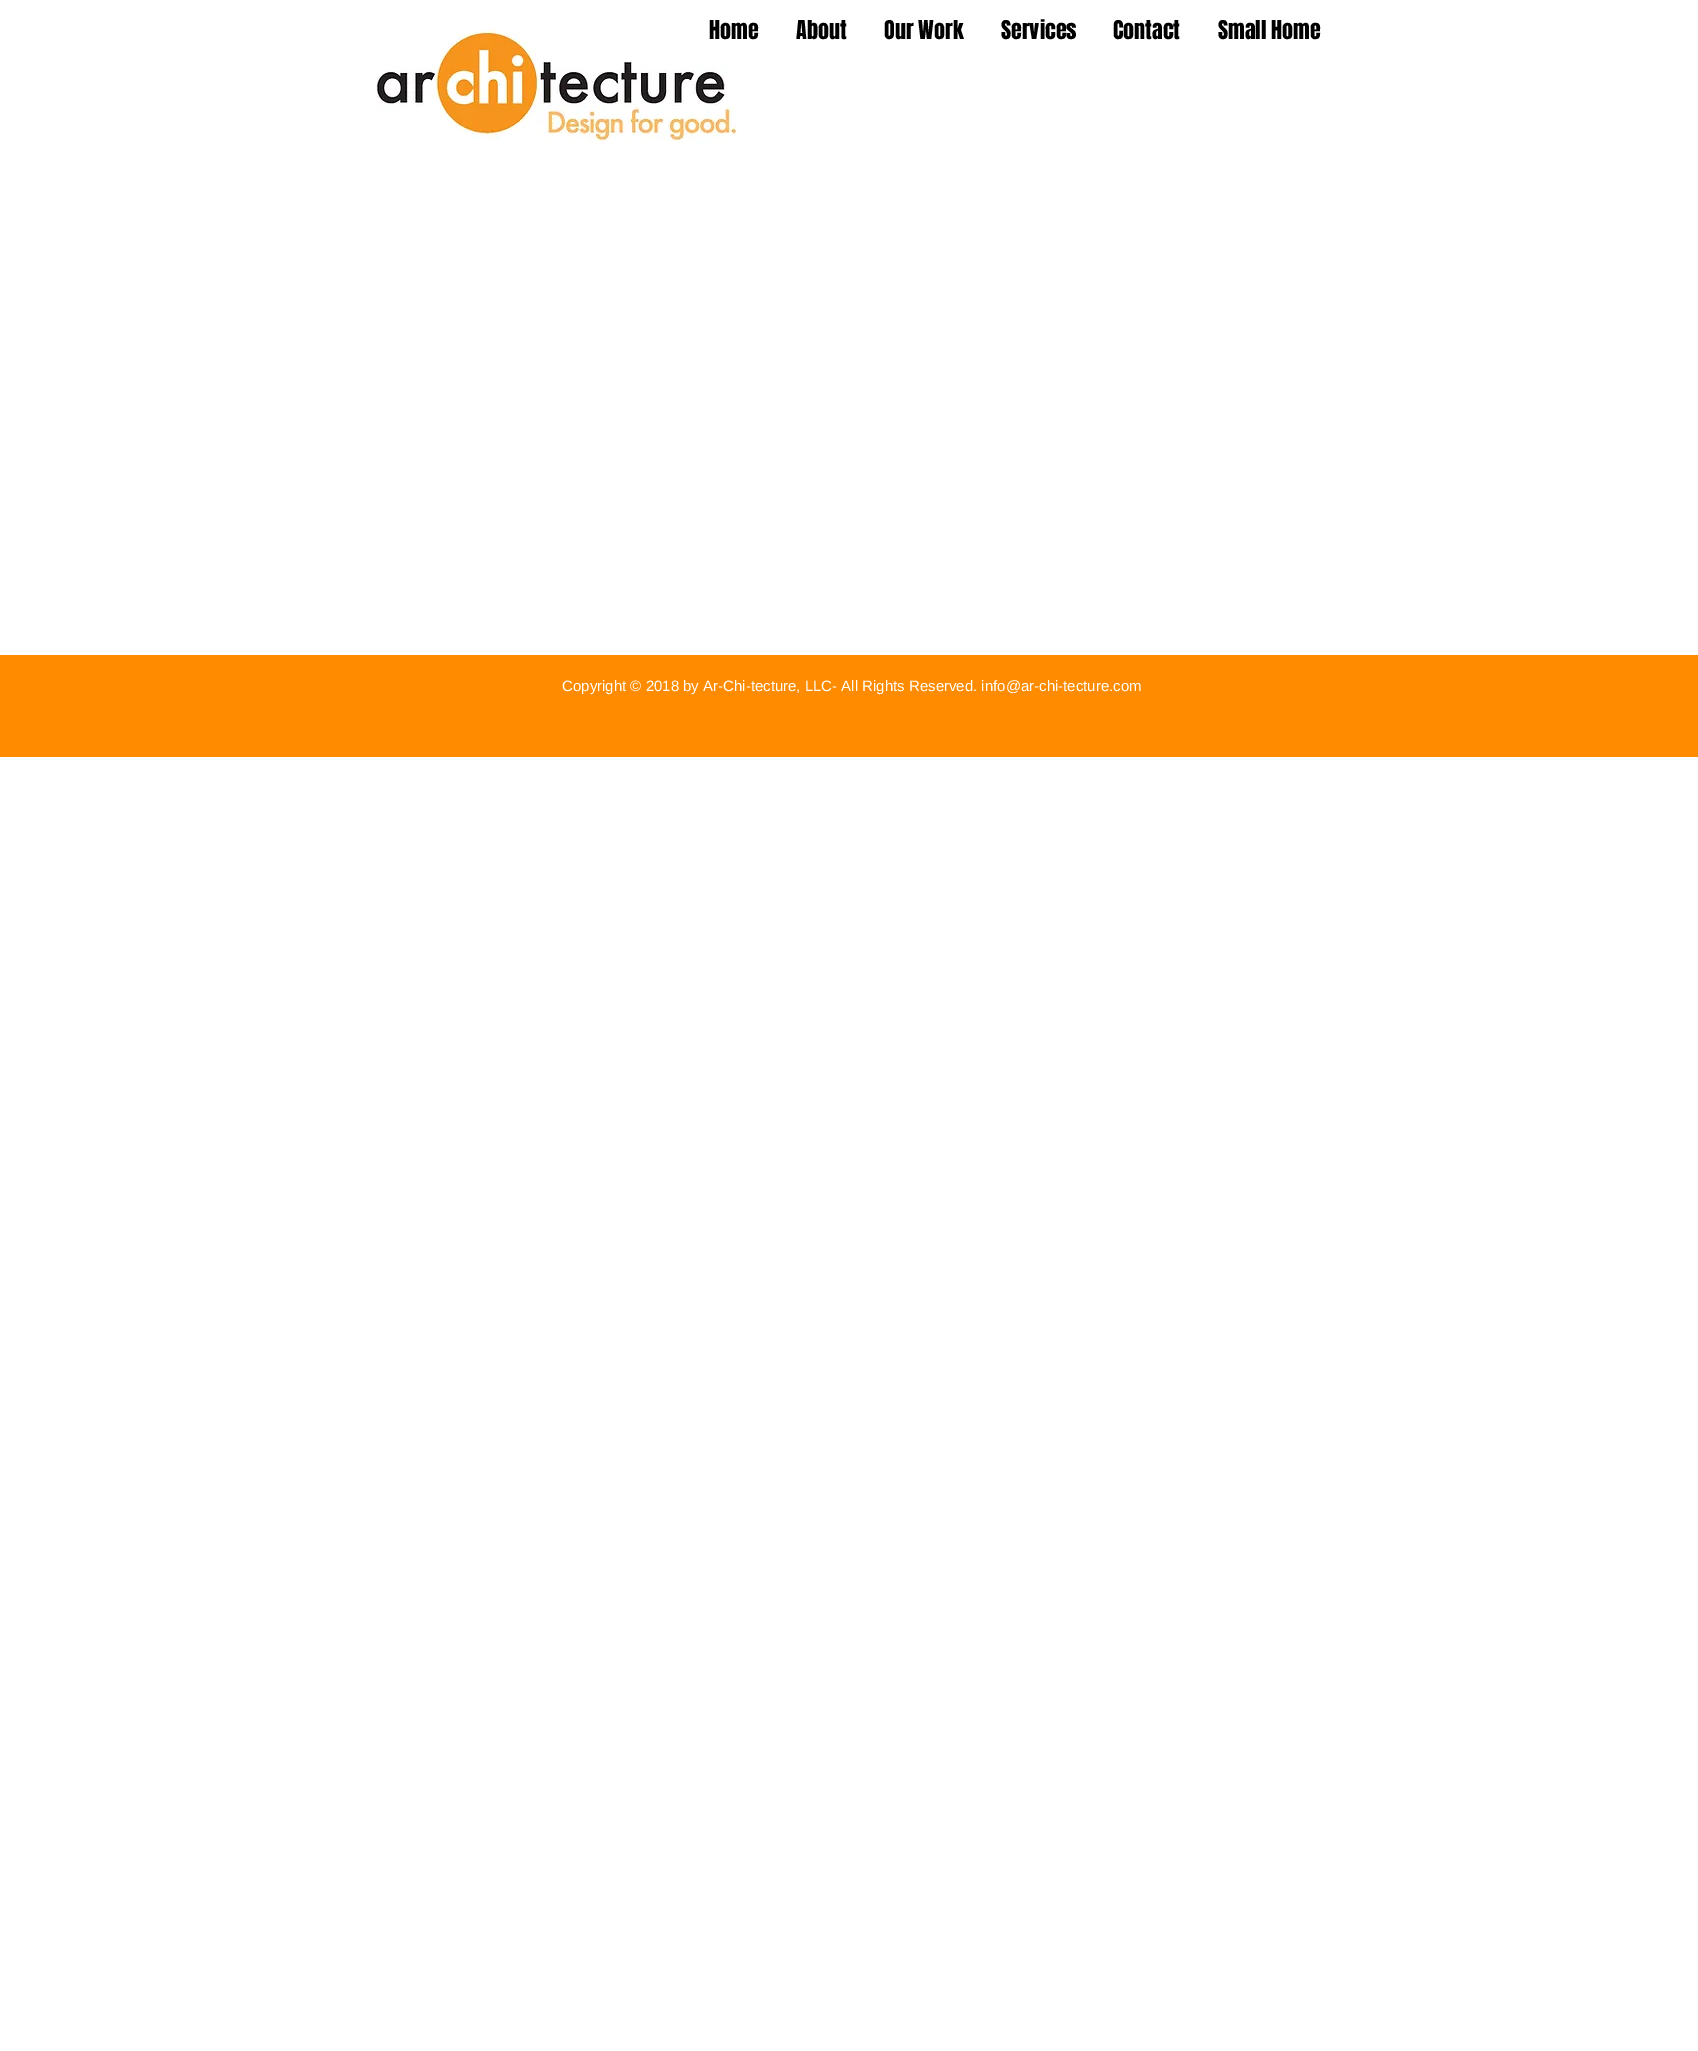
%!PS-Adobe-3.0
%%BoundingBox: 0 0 1698 2051
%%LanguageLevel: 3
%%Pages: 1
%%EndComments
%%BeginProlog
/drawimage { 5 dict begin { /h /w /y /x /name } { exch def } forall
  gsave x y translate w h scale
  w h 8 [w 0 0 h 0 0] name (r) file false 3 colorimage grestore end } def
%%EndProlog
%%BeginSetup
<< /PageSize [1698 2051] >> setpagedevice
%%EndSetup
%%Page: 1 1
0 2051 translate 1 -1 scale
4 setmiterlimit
1 setgray
0 0 1698 2051 rectfill
(images/1.raw) 376 28 361 118 drawimage
1 0.549 0 setrgbcolor
0 655 1698 102 rectfill
/Anton-Regular [22 0 0 -22 0 0] selectfont
0 setgray
709 39 moveto (Home) show
796 39 moveto (About) show
884 39 moveto (Our Work) show
1001 39 moveto (Services) show
1113 39 moveto (Contact) show
1218 39 moveto (Small Home) show
/LiberationSans-Regular [15 0 0 -15 0 0] selectfont
1 setgray
562 691 moveto (Copyright © 2018 by Ar-Chi-tecture, LLC- All Rights Reserved. info@ar-chi-tecture.com) show
showpage
%%EOF
